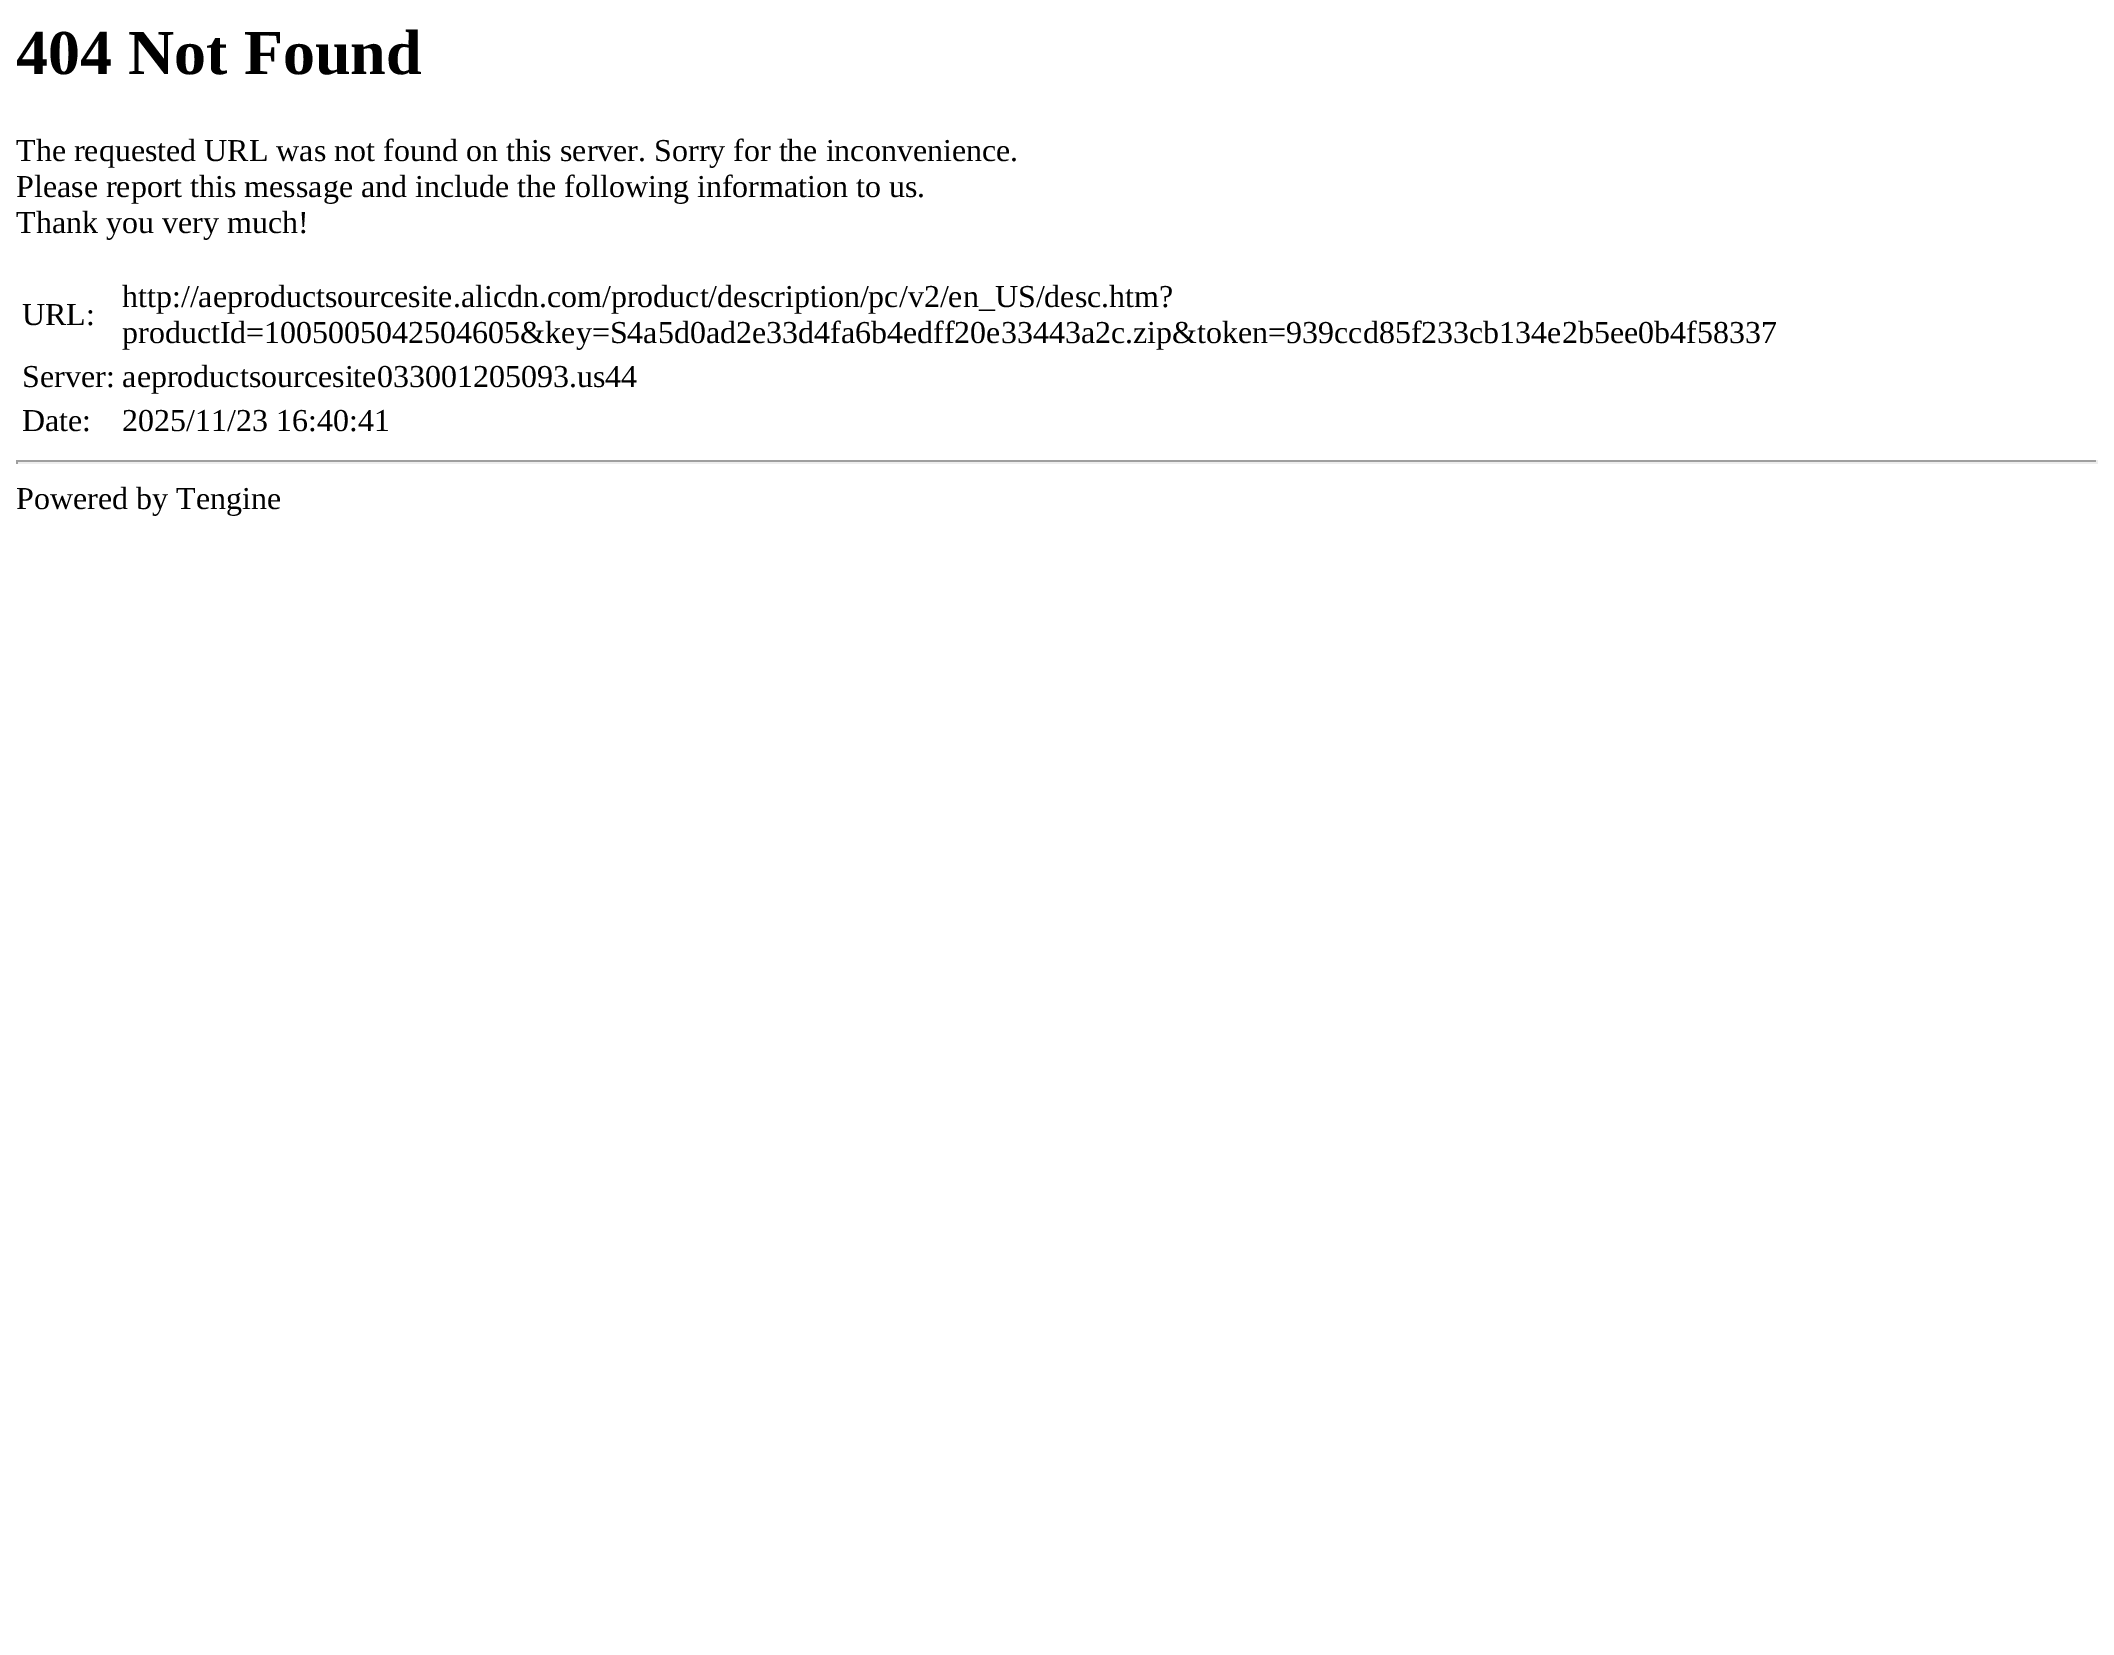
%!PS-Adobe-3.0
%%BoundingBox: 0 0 2114 1655
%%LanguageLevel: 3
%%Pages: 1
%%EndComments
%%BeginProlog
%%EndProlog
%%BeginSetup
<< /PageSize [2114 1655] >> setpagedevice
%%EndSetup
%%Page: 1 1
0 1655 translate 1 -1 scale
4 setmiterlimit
1 setgray
0 0 2114 1655 rectfill
0.624 setgray
16 460 2082 2 rectfill
0.933 setgray
2096 460 2 4 rectfill
16 462 2082 2 rectfill
0.624 setgray
16 460 2 4 rectfill
/LiberationSerif-Bold [64 0 0 -64 0 0] selectfont
0 setgray
16 74 moveto (404 Not Found) show
/LiberationSerif-Regular [32 0 0 -32 0 0] selectfont
16 161 moveto (The requested URL was not found on this server. Sorry for the inconvenience.) show
16 197 moveto (Please report this message and include the following information to us.) show
16 233 moveto (Thank you very much!) show
22 325 moveto (URL:) show
122 307 moveto (http://aeproductsourcesite.alicdn.com/product/description/pc/v2/en_US/desc.htm?) show
122 343 moveto (productId=1005005042504605&key=S4a5d0ad2e33d4fa6b4edff20e33443a2c.zip&token=939ccd85f233cb134e2b5ee0b4f58337) show
22 387 moveto (Server: aeproductsourcesite033001205093.us44) show
22 431 moveto (Date:) show
122 431 moveto (2025/11/23 16:40:41) show
16 509 moveto (Powered by Tengine) show
showpage
%%EOF
